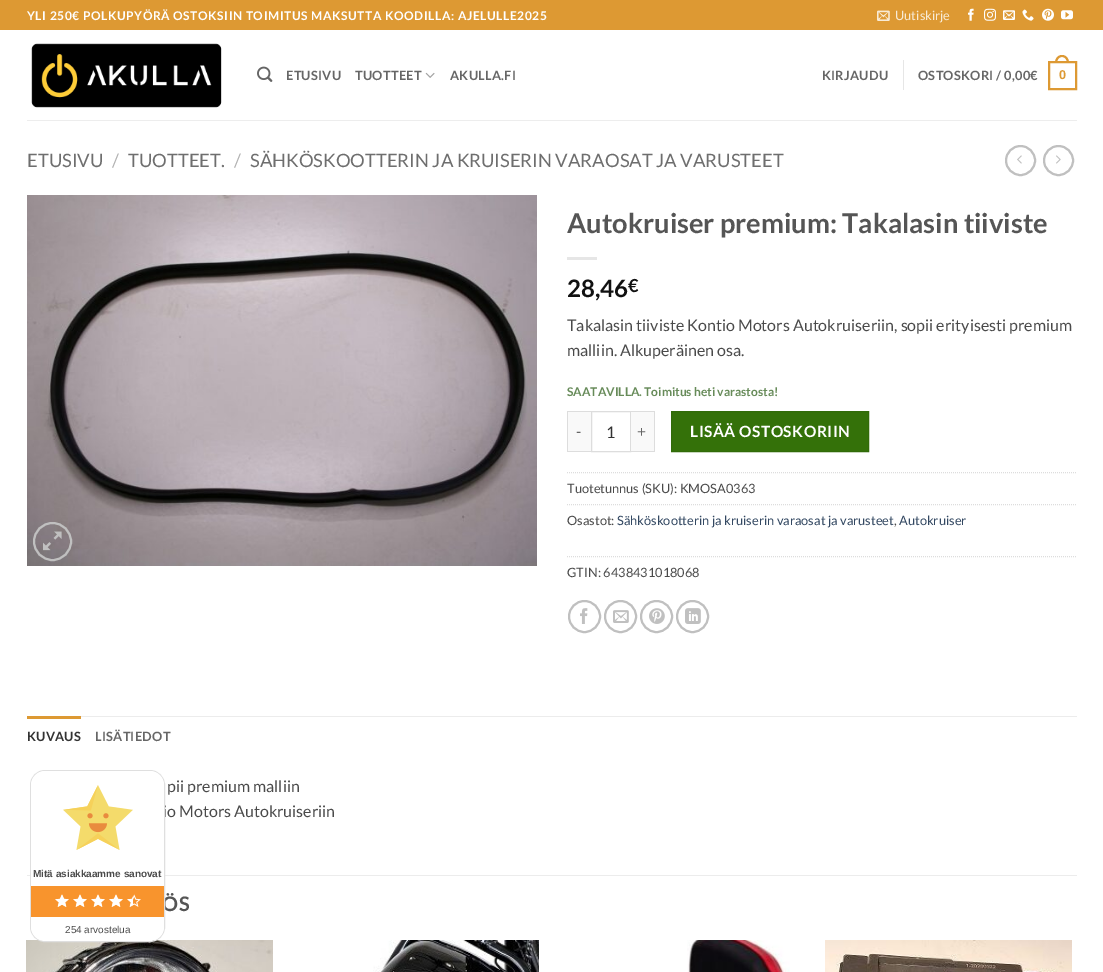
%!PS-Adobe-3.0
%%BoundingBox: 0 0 1103 972
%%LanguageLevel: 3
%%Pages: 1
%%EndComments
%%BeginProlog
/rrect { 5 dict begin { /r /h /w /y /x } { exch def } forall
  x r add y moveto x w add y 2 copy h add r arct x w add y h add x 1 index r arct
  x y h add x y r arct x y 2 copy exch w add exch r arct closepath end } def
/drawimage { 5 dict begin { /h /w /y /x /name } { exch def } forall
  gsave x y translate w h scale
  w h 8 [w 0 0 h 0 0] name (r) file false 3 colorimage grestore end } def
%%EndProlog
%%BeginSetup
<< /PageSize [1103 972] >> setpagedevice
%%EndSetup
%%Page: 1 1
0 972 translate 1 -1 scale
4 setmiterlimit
1 setgray
0 0 1103 972 rectfill
0.867 0.6 0.2 setrgbcolor
0 0 1103 30 rectfill
(images/1.raw) 877 10 13 11 drawimage
(images/2.raw) 968 8 6 13 drawimage
(images/3.raw) 984 8 12 13 drawimage
(images/4.raw) 1003 10 12 10 drawimage
(images/5.raw) 1022 9 12 12 drawimage
(images/6.raw) 1042 8 12 13 drawimage
(images/7.raw) 1061 10 12 10 drawimage
(images/8.raw) 31 43 191 65 drawimage
(images/9.raw) 257 66 16 16 drawimage
(images/10.raw) 425 72 10 6 drawimage
0.902 setgray
903 60 1 30 rectfill
0.867 0.6 0.2 setrgbcolor
2 setlinewidth
1049 62 27 27 rectstroke
newpath 1062 55 moveto 1066.5 55 1069 59 1069 63 curveto 1055 63 lineto 1055 59 1057.5 55 1062 55 curveto closepath 1062 57 moveto 1065.5 57 1067 60 1067 63 curveto 1057 63 lineto 1057 60 1058.5 57 1062 57 curveto closepath eofill
0.929 setgray
27 120 1050 1 rectfill
0.753 setgray
newpath 1020.5 160.5 14.5 0 360 arc closepath stroke
(images/11.raw) 1017 155 5 9 drawimage
newpath 1058.5 160.5 14.5 0 360 arc closepath stroke
(images/12.raw) 1056 155 5 9 drawimage
(images/13.raw) 27 195 510 371 drawimage
newpath 52.5 541.5 18.5 0 360 arc closepath stroke
(images/14.raw) 43 531 19 20 drawimage
0.902 setgray
567 257 30 3 rectfill
0.976 setgray
568 412 23 39 rectfill
0.867 setgray
567 411 24 1 rectfill
567 451 24 1 rectfill
567 411 1 41 rectfill
1 setlinewidth
591.5 411.5 39 40 rectstroke
0.976 setgray
631 412 23 39 rectfill
0.867 setgray
631 411 24 1 rectfill
654 411 1 41 rectfill
631 451 24 1 rectfill
0.204 0.443 0.035 setrgbcolor
newpath 671.5 411.5 moveto 868.5 411.5 lineto 868.5 451.5 lineto 671.5 451.5 lineto closepath gsave fill grestore
0.192 0.42 0.035 setrgbcolor
stroke
0.867 setgray
[1 1] 0 setdash
newpath 567 472.5 moveto 1077 472.5 lineto stroke
newpath 567 504.5 moveto 1077 504.5 lineto stroke
newpath 567 556.5 moveto 1077 556.5 lineto stroke
0.753 setgray
2 setlinewidth
[] 0 setdash
newpath 584.5 616.5 15.5 0 360 arc closepath stroke
(images/15.raw) 580 608 8 16 drawimage
newpath 620.5 616.5 15.5 0 360 arc closepath stroke
(images/16.raw) 613 610 16 13 drawimage
newpath 656.5 616.5 15.5 0 360 arc closepath stroke
(images/17.raw) 649 608 16 16 drawimage
newpath 692.5 616.5 15.5 0 360 arc closepath stroke
(images/18.raw) 685 608 16 16 drawimage
0.925 setgray
81 716 996 1 rectfill
0.867 0.6 0.2 setrgbcolor
27 716 54 3 rectfill
0.925 setgray
27 875 1050 1 rectfill
(images/19.raw) 26 940 247 32 drawimage
(images/20.raw) 373 940 166 32 drawimage
(images/21.raw) 687 940 103 32 drawimage
(images/22.raw) 825 940 247 32 drawimage
/Lato-Bold [12 0 0 -12 0 0] selectfont
1 setgray
27 20 moveto 0.6 0 (YLI 250€ POLKUPYÖRÄ OSTOKSIIN TOIMITUS MAKSUTTA KOODILLA: AJELULLE2025) ashow
/Lato-Regular [12.8 0 0 -12.8 0 0] selectfont
0.973 0.922 0.839 setrgbcolor
895 20 moveto (Uutiskirje) show
/Lato-Bold [12.8 0 0 -12.8 0 0] selectfont
0.4 setgray
286 80 moveto 0.25 0 (ETUSIVU) ashow
355 80 moveto 0.25 0 (TUOTTEET) ashow
450 80 moveto 0.25 0 (AKULLA.FI) ashow
822 80 moveto 0.25 0 (KIRJAUDU) ashow
918 80 moveto 0.25 0 (OSTOSKORI / 0,00€) ashow
/LiberationSans-Bold [12.8 0 0 -12.8 0 0] selectfont
0.867 0.6 0.2 setrgbcolor
1059 79 moveto 0.25 0 (0) ashow
/Lato-Regular [18.4 0 0 -18.4 0 0] selectfont
0.431 setgray
27 167 moveto (ETUSIVU) show
0.698 setgray
112 167 moveto (/) show
0.431 setgray
128 167 moveto (TUOTTEET.) show
0.698 setgray
234 167 moveto (/) show
0.431 setgray
250 167 moveto (SÄHKÖSKOOTTERIN JA KRUISERIN VARAOSAT JA VARUSTEET) show
/Lato-Bold [27.25 0 0 -27.25 0 0] selectfont
0.333 setgray
567 233 moveto (Autokruiser premium: Takalasin tiiviste) show
/Lato-Bold [24 0 0 -24 0 0] selectfont
0.067 setgray
567 297 moveto (28,46) show
/Lato-Bold [18 0 0 -18 0 0] selectfont
628 292 moveto (€) show
/Lato-Regular [16 0 0 -16 0 0] selectfont
0.29 setgray
567 331 moveto (Takalasin tiiviste Kontio Motors Autokruiseriin, sopii erityisesti premium) show
567 356 moveto (malliin. Alkuperäinen osa.) show
/Lato-Bold [12 0 0 -12 0 0] selectfont
0.404 0.545 0.349 setrgbcolor
567 396 moveto (SAATAVILLA. Toimitus heti varastosta!) show
/Lato-Regular [15.5 0 0 -15.5 0 0] selectfont
0.4 setgray
576 437 moveto 0.5 0 (-) ashow
/Lato-Regular [16 0 0 -16 0 0] selectfont
0.2 setgray
606 438 moveto (1) show
/Lato-Regular [15.5 0 0 -15.5 0 0] selectfont
0.4 setgray
637 437 moveto 0.5 0 (+) ashow
/Lato-Bold [15.5 0 0 -15.5 0 0] selectfont
1 setgray
690 437 moveto 0.5 0 (LISÄÄ OSTOSKORIIN) ashow
/Lato-Regular [12.8 0 0 -12.8 0 0] selectfont
0.29 setgray
567 493 moveto (Tuotetunnus \(SKU\): KMOSA0363) show
567 525 moveto (Osastot:) show
0.2 0.282 0.384 setrgbcolor
617 525 moveto (Sähköskootterin ja kruiserin varaosat ja varusteet) show
0.29 setgray
894 525 moveto (,) show
0.2 0.282 0.384 setrgbcolor
899 525 moveto (Autokruiser) show
0.29 setgray
567 577 moveto (GTIN: 6438431018068) show
/Lato-Bold [12.8 0 0 -12.8 0 0] selectfont
0.2 setgray
27 741 moveto 0.25 0 (KUVAUS) ashow
0.4 setgray
95 741 moveto 0.25 0 (LISÄTIEDOT) ashow
/Lato-Regular [16 0 0 -16 0 0] selectfont
0.29 setgray
167 792 moveto (pii premium malliin) show
163 817 moveto (io Motors Autokruiseriin) show
/Lato-Bold [20 0 0 -20 0 0] selectfont
0.333 setgray
162 911 moveto 1 0 (ÖS) ashow
0.875 setgray
1 setlinewidth
30.5 770.5 134 171 14.5 rrect stroke
1 setgray
newpath 45 771 moveto 150 771 lineto 157.5 771 164 777.5 164 785 curveto 164 886 lineto 31 886 lineto 31 785 lineto 31 777.5 37.5 771 45 771 curveto closepath fill
0.973 0.58 0.176 setrgbcolor
31 886 133 31 rectfill
1 setgray
newpath 31 917 moveto 164 917 lineto 164 927 lineto 164 934.5 157.5 941 150 941 curveto 45 941 lineto 37.5 941 31 934.5 31 927 curveto closepath fill
(images/23.raw) 63 785 70 65 drawimage
/LiberationSans-Bold [10 0 0 -10 0 0] selectfont
0.29 setgray
33 877 moveto (Mitä asiakkaamme sanovat) show
(images/24.raw) 55 894 14 13 drawimage
(images/25.raw) 55 894 14 13 drawimage
(images/24.raw) 73 894 14 13 drawimage
(images/25.raw) 73 894 14 13 drawimage
(images/24.raw) 91 894 14 13 drawimage
(images/25.raw) 91 894 14 13 drawimage
(images/24.raw) 109 894 14 13 drawimage
(images/25.raw) 109 894 14 13 drawimage
(images/24.raw) 127 894 14 13 drawimage
(images/26.raw) 127 896 6 11 drawimage
/LiberationSans-Regular [10 0 0 -10 0 0] selectfont
65 933 moveto (254 arvostelua) show
showpage
%%EOF
